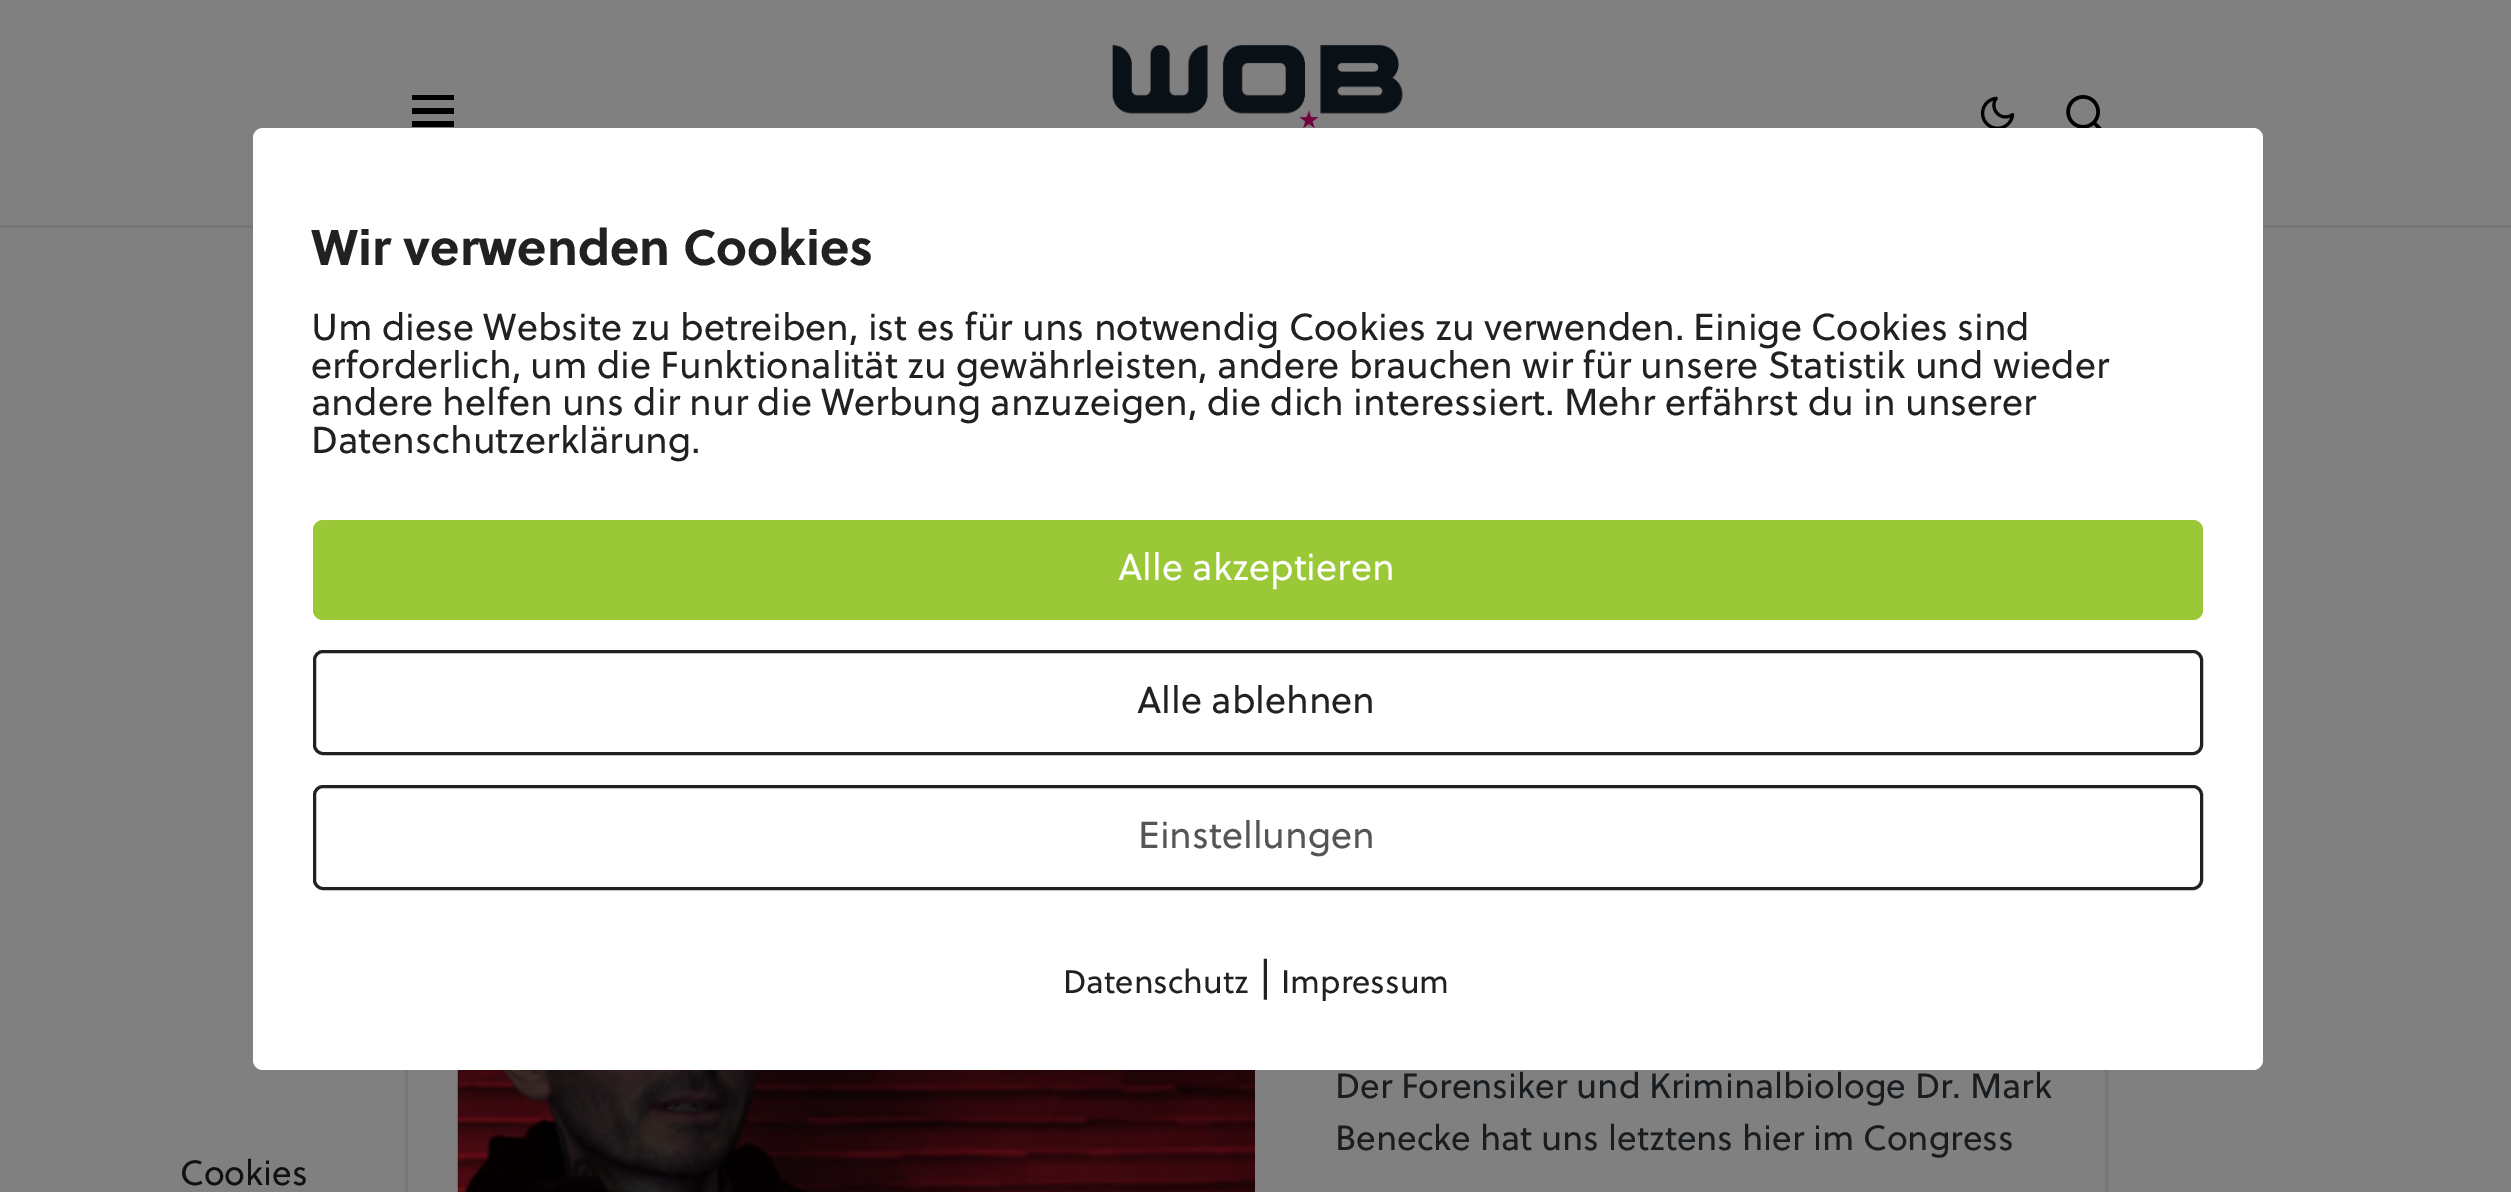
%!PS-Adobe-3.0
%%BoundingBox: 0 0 2511 1192
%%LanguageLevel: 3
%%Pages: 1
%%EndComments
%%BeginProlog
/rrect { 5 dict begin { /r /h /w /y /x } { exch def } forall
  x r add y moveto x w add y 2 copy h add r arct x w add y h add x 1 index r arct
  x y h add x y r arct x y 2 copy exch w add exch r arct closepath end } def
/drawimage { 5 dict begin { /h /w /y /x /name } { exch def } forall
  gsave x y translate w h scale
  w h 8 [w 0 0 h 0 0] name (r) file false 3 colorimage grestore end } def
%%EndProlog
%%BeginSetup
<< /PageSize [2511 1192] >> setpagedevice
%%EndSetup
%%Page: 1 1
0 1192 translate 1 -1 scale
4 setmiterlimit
0.502 setgray
0 0 2511 1192 rectfill
0.459 0.463 0.471 setrgbcolor
0 225 2511 3 rectfill
3 setlinewidth
406.5 781.5 1700 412 rectstroke
1 setgray
253 128 2010 942 10 rrect fill
0.604 0.784 0.212 setrgbcolor
313 520 1890 100 10 rrect fill
0.129 setgray
314.5 651.5 1887 102 8.5 rrect stroke
314.5 786.5 1887 102 8.5 rrect stroke
0 setgray
newpath 412 95 moveto 454 95 lineto 454 100 lineto 412 100 lineto closepath 412 108 moveto 454 108 lineto 454 114 lineto 412 114 lineto closepath 412 121 moveto 454 121 lineto 454 127 lineto 412 127 lineto closepath fill
(images/1.raw) 1112 44 291 84 drawimage
(images/2.raw) 1980 96 35 32 drawimage
(images/3.raw) 2066 95 36 33 drawimage
(images/4.raw) 457 1070 798 122 drawimage
/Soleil-Bold [50 0 0 -50 0 0] selectfont
0.129 setgray
311 265 moveto (Wir verwenden Cookies) show
/Soleil-Regular [37.5 0 0 -37.5 0 0] selectfont
311 340 moveto (Um diese Website zu betreiben, ist es für uns notwendig Cookies zu verwenden. Einige Cookies sind) show
311 378 moveto (erforderlich, um die Funktionalität zu gewährleisten, andere brauchen wir für unsere Statistik und wieder) show
311 415 moveto (andere helfen uns dir nur die Werbung anzuzeigen, die dich interessiert. Mehr erfährst du in unserer) show
311 453 moveto (Datenschutzerklärung.) show
1 setgray
1118 580 moveto (Alle akzeptieren) show
0.129 setgray
1137 713 moveto (Alle ablehnen) show
0.333 setgray
1138 848 moveto (Einstellungen) show
/Soleil-Regular [32.5 0 0 -32.5 0 0] selectfont
0.129 setgray
1063 993 moveto (Datenschutz) show
/Soleil-Regular [40 0 0 -40 0 0] selectfont
1259 993 moveto (|) show
/Soleil-Regular [32.5 0 0 -32.5 0 0] selectfont
1281 993 moveto (Impressum) show
/Soleil-Regular [35 0 0 -35 0 0] selectfont
0.102 0.114 0.125 setrgbcolor
1335 1098 moveto (Der Forensiker und Kriminalbiologe Dr. Mark) show
1335 1150 moveto (Benecke hat uns letztens hier im Congress) show
0.067 setgray
180 1185 moveto (Cookies) show
showpage
%%EOF
